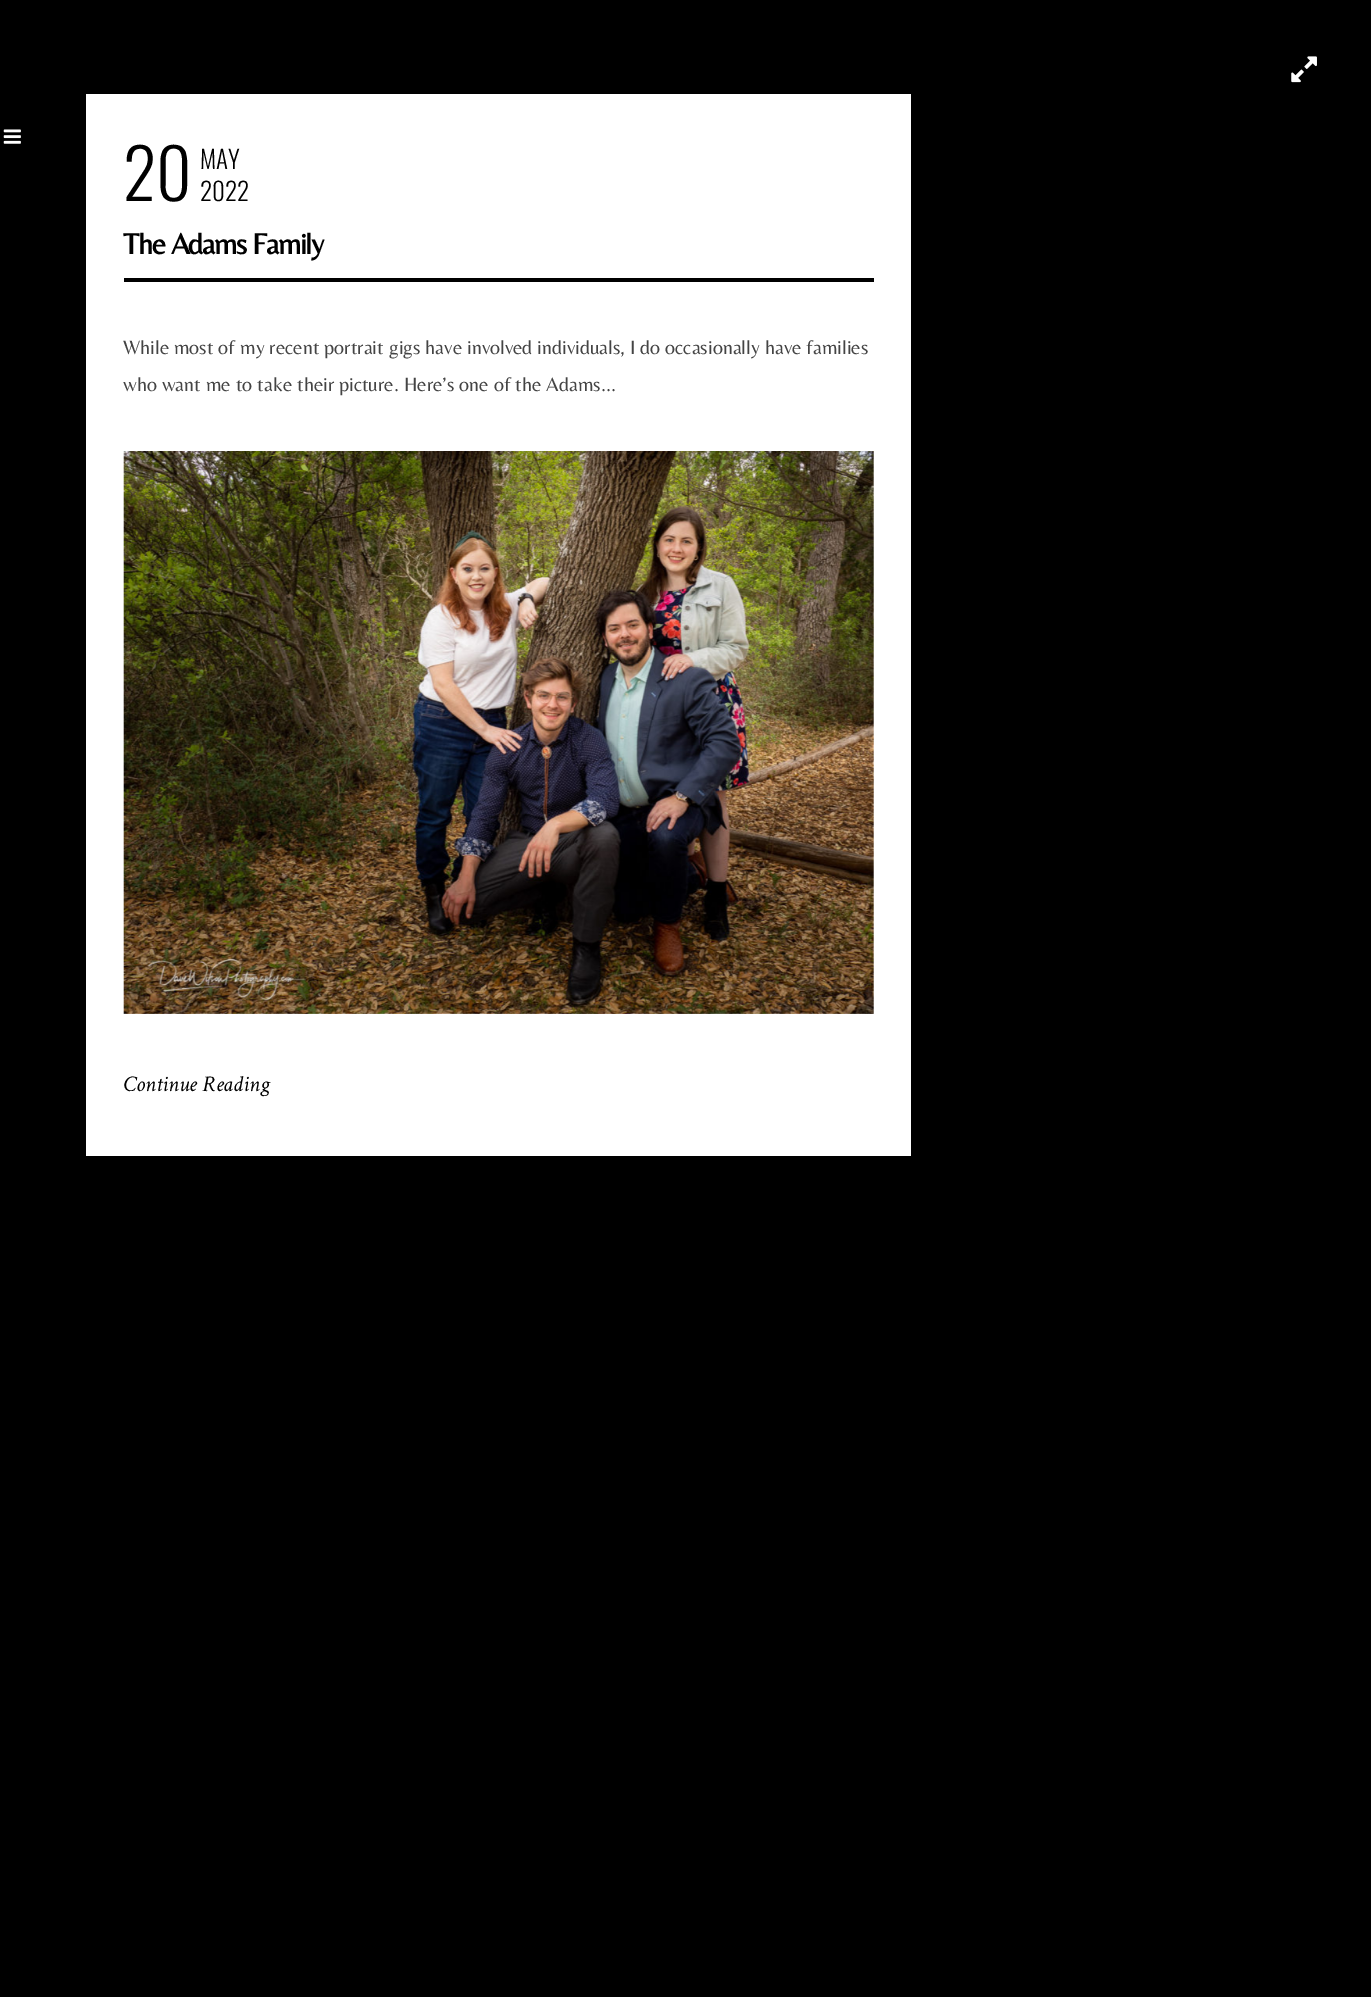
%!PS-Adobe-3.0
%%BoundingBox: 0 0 1371 1997
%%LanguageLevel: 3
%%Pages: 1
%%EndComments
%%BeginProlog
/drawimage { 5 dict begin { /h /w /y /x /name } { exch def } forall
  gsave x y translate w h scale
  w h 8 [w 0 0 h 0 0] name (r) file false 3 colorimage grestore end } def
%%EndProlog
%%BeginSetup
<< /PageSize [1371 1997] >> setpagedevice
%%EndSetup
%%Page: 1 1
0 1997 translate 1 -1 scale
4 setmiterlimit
0 setgray
0 0 1371 1997 rectfill
(images/1.raw) 3 129 18 15 drawimage
(images/2.raw) 1291 56 26 27 drawimage
1 setgray
86 94 825 1062 rectfill
0 setgray
124 278 750 4 rectfill
(images/3.raw) 123 451 751 563 drawimage
/Oswald-Light [69 0 0 -69 0 0] selectfont
123 201 moveto (20) show
/Oswald-Light [25 0 0 -25 0 0] selectfont
200 169 moveto (MAY) show
200 201 moveto (2022) show
/Belleza-Bold [30 0 0 -30 0 0] selectfont
123 254 moveto -1.25 0 (The Adams Family) ashow
/Belleza-Regular [20 0 0 -20 0 0] selectfont
0.267 setgray
123 354 moveto (While most of my recent portrait gigs have involved individuals, I do occasionally have families) show
123 391 moveto (who want me to take their picture. Here’s one of the Adams...) show
/CrimsonText-Italic [22.5 0 0 -22.5 0 0] selectfont
0 setgray
123 1091 moveto (Continue Reading) show
showpage
%%EOF
